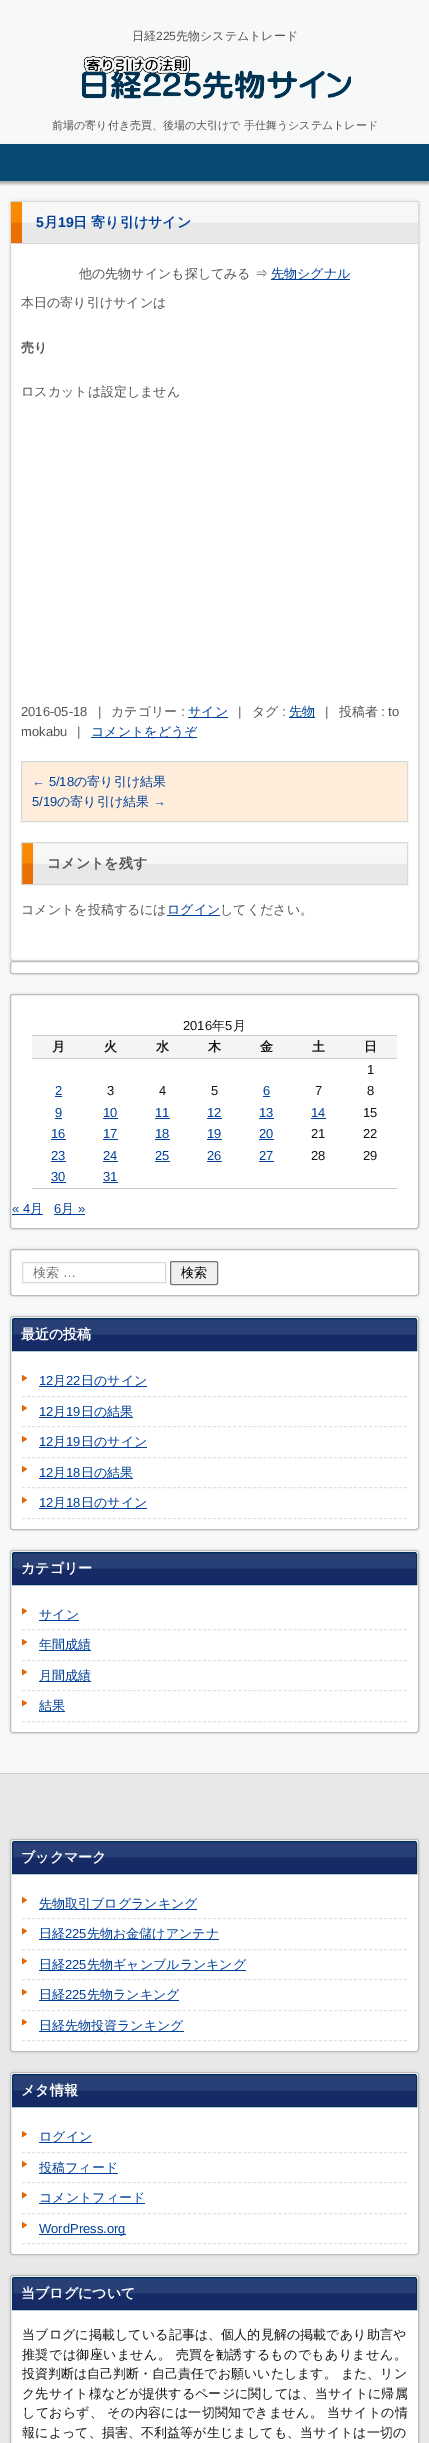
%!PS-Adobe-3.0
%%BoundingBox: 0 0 429 2443
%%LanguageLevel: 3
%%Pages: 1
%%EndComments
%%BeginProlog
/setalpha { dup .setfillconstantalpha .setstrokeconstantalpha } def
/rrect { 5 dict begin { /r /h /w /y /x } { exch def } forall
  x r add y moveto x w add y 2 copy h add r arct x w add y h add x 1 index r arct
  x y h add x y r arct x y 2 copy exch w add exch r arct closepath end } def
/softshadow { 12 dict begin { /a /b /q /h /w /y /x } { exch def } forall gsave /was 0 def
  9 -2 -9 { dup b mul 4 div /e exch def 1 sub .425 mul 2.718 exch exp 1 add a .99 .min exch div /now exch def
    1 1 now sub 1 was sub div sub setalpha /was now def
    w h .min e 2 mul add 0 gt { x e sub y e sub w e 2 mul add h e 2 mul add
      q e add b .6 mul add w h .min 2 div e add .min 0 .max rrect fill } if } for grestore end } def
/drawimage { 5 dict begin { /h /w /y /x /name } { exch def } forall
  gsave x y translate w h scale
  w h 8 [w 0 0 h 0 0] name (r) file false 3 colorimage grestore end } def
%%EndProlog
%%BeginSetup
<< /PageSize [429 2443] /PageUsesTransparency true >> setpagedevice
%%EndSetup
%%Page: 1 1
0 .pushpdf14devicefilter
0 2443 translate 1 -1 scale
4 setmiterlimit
0.969 0.973 0.973 setrgbcolor
0 0 429 2443 rectfill
gsave
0 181 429 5 rectclip
0.627 setgray
0 2 429 181 0 1.5 0.75 softshadow
grestore
(images/1.raw) 81 56 270 43 drawimage
0.627 setgray
0 146 429 37 0 1.5 0.75 softshadow
0.027 0.286 0.451 setrgbcolor
0 144 429 37 rectfill
0.804 setgray
10 201 409 760 3 1.5 0.75 softshadow
1 setgray
newpath 10.5 201.5 moveto 418.5 201.5 lineto 418.5 958 lineto 418.5 959.5 417.5 960.5 416 960.5 curveto 13 960.5 lineto 11.5 960.5 10.5 959.5 10.5 958 curveto closepath gsave fill grestore
0.847 setgray
stroke
(images/2.raw) 11 202 407 41 drawimage
11 243 407 1 rectfill
0 0.251 0.596 setrgbcolor
271 279 79 1 rectfill
188 717 40 1 rectfill
289 717 26 1 rectfill
91 737 106 1 rectfill
1 0.929 0.859 setrgbcolor
newpath 21.5 761.5 moveto 407.5 761.5 lineto 407.5 821.5 lineto 21.5 821.5 lineto closepath gsave fill grestore
0.847 setgray
stroke
(images/3.raw) 22 843 385 41 drawimage
21.5 842.5 386 42 rectstroke
0 0.251 0.596 setrgbcolor
167 915 53 1 rectfill
0.804 setgray
10 961 409 13 3 1.5 0.75 softshadow
1 setgray
10.5 961.5 408 12 2.5 rrect gsave fill grestore
0.737 setgray
stroke
0.804 setgray
10 994 409 235 3 1.5 0.75 softshadow
1 setgray
10.5 994.5 408 234 2.5 rrect gsave fill grestore
0.737 setgray
stroke
0.8 0.8 0.773 setrgbcolor
32 1035 365 1 rectfill
0.957 setgray
32 1036 365 22 rectfill
0.8 0.8 0.773 setrgbcolor
32 1058 365 1 rectfill
32 1188 365 1 rectfill
0 0.251 0.596 setrgbcolor
55 1096 7 1 rectfill
263 1096 7 1 rectfill
55 1118 7 1 rectfill
103 1118 15 1 rectfill
155 1118 15 1 rectfill
207 1118 15 1 rectfill
259 1118 15 1 rectfill
311 1118 15 1 rectfill
51 1139 15 1 rectfill
103 1139 15 1 rectfill
155 1139 15 1 rectfill
207 1139 15 1 rectfill
259 1139 15 1 rectfill
51 1161 15 1 rectfill
103 1161 15 1 rectfill
155 1161 15 1 rectfill
207 1161 15 1 rectfill
259 1161 15 1 rectfill
51 1182 15 1 rectfill
103 1182 15 1 rectfill
12 1214 31 1 rectfill
54 1214 31 1 rectfill
0.804 setgray
10 1249 409 47 3 1.5 0.75 softshadow
1 setgray
10.5 1249.5 408 46 2.5 rrect gsave fill grestore
0.737 setgray
stroke
0.847 setgray
22.5 1262.5 143 20 rectstroke
0.937 setgray
170.5 1261.5 47 23 1.5 rrect gsave fill grestore
0.463 setgray
stroke
0.804 setgray
10 1316 409 214 3 1.5 0.75 softshadow
1 setgray
10.5 1316.5 408 213 2.5 rrect gsave fill grestore
0.737 setgray
stroke
(images/4.raw) 12 1318 405 32 drawimage
0.008 0.18 0.357 setrgbcolor
newpath 15 1318.5 moveto 414 1318.5 lineto 415.5 1318.5 416.5 1319.5 416.5 1321 curveto 416.5 1350.5 lineto 12.5 1350.5 lineto 12.5 1321 lineto 12.5 1319.5 13.5 1318.5 15 1318.5 curveto closepath stroke
(images/5.raw) 22 1374 6 8 drawimage
0 0.251 0.596 setrgbcolor
39 1386 108 1 rectfill
0.886 setgray
[3 2.03] 0 setdash
newpath 22 1396.5 moveto 407 1396.5 lineto stroke
(images/5.raw) 22 1404 6 8 drawimage
0 0.251 0.596 setrgbcolor
39 1417 94 1 rectfill
0.886 setgray
newpath 22 1426.5 moveto 407 1426.5 lineto stroke
(images/5.raw) 22 1435 6 8 drawimage
0 0.251 0.596 setrgbcolor
39 1447 108 1 rectfill
0.886 setgray
newpath 22 1457.5 moveto 407 1457.5 lineto stroke
(images/5.raw) 22 1465 6 8 drawimage
0 0.251 0.596 setrgbcolor
39 1478 94 1 rectfill
0.886 setgray
newpath 22 1487.5 moveto 407 1487.5 lineto stroke
newpath 22 1518.5 moveto 407 1518.5 lineto stroke
(images/5.raw) 22 1496 6 8 drawimage
0 0.251 0.596 setrgbcolor
39 1508 108 1 rectfill
0.804 setgray
10 1550 409 183 3 1.5 0.75 softshadow
1 setgray
10.5 1550.5 408 182 2.5 rrect gsave fill grestore
0.737 setgray
[] 0 setdash
stroke
(images/4.raw) 12 1552 405 32 drawimage
0.008 0.18 0.357 setrgbcolor
newpath 15 1552.5 moveto 414 1552.5 lineto 415.5 1552.5 416.5 1553.5 416.5 1555 curveto 416.5 1584.5 lineto 12.5 1584.5 lineto 12.5 1555 lineto 12.5 1553.5 13.5 1552.5 15 1552.5 curveto closepath stroke
(images/5.raw) 22 1607 6 8 drawimage
0 0.251 0.596 setrgbcolor
39 1620 40 1 rectfill
0.886 setgray
[3 2.03] 0 setdash
newpath 22 1629.5 moveto 407 1629.5 lineto stroke
(images/5.raw) 22 1638 6 8 drawimage
0 0.251 0.596 setrgbcolor
39 1650 52 1 rectfill
0.886 setgray
newpath 22 1660.5 moveto 407 1660.5 lineto stroke
(images/5.raw) 22 1668 6 8 drawimage
0 0.251 0.596 setrgbcolor
39 1681 52 1 rectfill
0.886 setgray
newpath 22 1690.5 moveto 407 1690.5 lineto stroke
newpath 22 1721.5 moveto 407 1721.5 lineto stroke
(images/5.raw) 22 1699 6 8 drawimage
0 0.251 0.596 setrgbcolor
39 1711 26 1 rectfill
0.91 setgray
0 1774 429 669 rectfill
0.804 setgray
0 1773 429 1 rectfill
10 1839 409 213 3 1.5 0.75 softshadow
1 setgray
10.5 1839.5 408 212 2.5 rrect gsave fill grestore
0.737 setgray
[] 0 setdash
stroke
(images/4.raw) 12 1841 405 32 drawimage
0.008 0.18 0.357 setrgbcolor
newpath 15 1841.5 moveto 414 1841.5 lineto 415.5 1841.5 416.5 1842.5 416.5 1844 curveto 416.5 1873.5 lineto 12.5 1873.5 lineto 12.5 1844 lineto 12.5 1842.5 13.5 1841.5 15 1841.5 curveto closepath stroke
(images/5.raw) 22 1896 6 8 drawimage
0 0.251 0.596 setrgbcolor
39 1909 158 1 rectfill
0.886 setgray
[3 2.03] 0 setdash
newpath 22 1918.5 moveto 407 1918.5 lineto stroke
(images/5.raw) 22 1927 6 8 drawimage
0 0.251 0.596 setrgbcolor
39 1939 180 1 rectfill
0.886 setgray
newpath 22 1949.5 moveto 407 1949.5 lineto stroke
(images/5.raw) 22 1957 6 8 drawimage
0 0.251 0.596 setrgbcolor
39 1970 207 1 rectfill
0.886 setgray
newpath 22 1979.5 moveto 407 1979.5 lineto stroke
(images/5.raw) 22 1988 6 8 drawimage
0 0.251 0.596 setrgbcolor
39 2000 140 1 rectfill
0.886 setgray
newpath 22 2010.5 moveto 407 2010.5 lineto stroke
newpath 22 2040.5 moveto 407 2040.5 lineto stroke
(images/5.raw) 22 2018 6 8 drawimage
0 0.251 0.596 setrgbcolor
39 2031 145 1 rectfill
0.804 setgray
10 2072 409 183 3 1.5 0.75 softshadow
1 setgray
10.5 2072.5 408 182 2.5 rrect gsave fill grestore
0.737 setgray
[] 0 setdash
stroke
(images/4.raw) 12 2074 405 32 drawimage
0.008 0.18 0.357 setrgbcolor
newpath 15 2074.5 moveto 414 2074.5 lineto 415.5 2074.5 416.5 2075.5 416.5 2077 curveto 416.5 2106.5 lineto 12.5 2106.5 lineto 12.5 2077 lineto 12.5 2075.5 13.5 2074.5 15 2074.5 curveto closepath stroke
(images/5.raw) 22 2130 6 8 drawimage
0 0.251 0.596 setrgbcolor
39 2142 53 1 rectfill
0.886 setgray
[3 2.03] 0 setdash
newpath 22 2152.5 moveto 407 2152.5 lineto stroke
(images/5.raw) 22 2160 6 8 drawimage
0 0.251 0.596 setrgbcolor
39 2173 79 1 rectfill
0.886 setgray
newpath 22 2182.5 moveto 407 2182.5 lineto stroke
(images/5.raw) 22 2191 6 8 drawimage
0 0.251 0.596 setrgbcolor
39 2203 106 1 rectfill
0.886 setgray
newpath 22 2213.5 moveto 407 2213.5 lineto stroke
newpath 22 2243.5 moveto 407 2243.5 lineto stroke
(images/5.raw) 22 2221 6 8 drawimage
0 0.251 0.596 setrgbcolor
39 2234 87 1 rectfill
0.804 setgray
10 2275 409 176 3 1.5 0.75 softshadow
1 setgray
10.5 2275.5 408 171 2.5 rrect gsave fill grestore
0.737 setgray
[] 0 setdash
stroke
(images/4.raw) 12 2277 405 32 drawimage
0.008 0.18 0.357 setrgbcolor
newpath 15 2277.5 moveto 414 2277.5 lineto 415.5 2277.5 416.5 2278.5 416.5 2280 curveto 416.5 2309.5 lineto 12.5 2309.5 lineto 12.5 2280 lineto 12.5 2278.5 13.5 2277.5 15 2277.5 curveto closepath stroke
/WenQuanYiZenHei-Medium [12 0 0 -12 0 0] selectfont
0.325 setgray
132 40 moveto (日経) show
/LiberationSans-Regular [12 0 0 -12 0 0] selectfont
156 40 moveto (225) show
/WenQuanYiZenHei-Medium [12 0 0 -12 0 0] selectfont
176 40 moveto (先物システムトレード) show
/WenQuanYiZenHei-Medium [11 0 0 -11 0 0] selectfont
52 129 moveto (前場の寄り付き売買、後場の大引けで 手仕舞うシステムトレード) show
/LiberationSans-Bold [14 0 0 -14 0 0] selectfont
0 0.251 0.596 setrgbcolor
36 227 moveto (5) show
/WenQuanYiZenHei-Bold [14 0 0 -14 0 0] selectfont
44 227 moveto (月) show
/LiberationSans-Bold [14 0 0 -14 0 0] selectfont
58 227 moveto (19) show
/WenQuanYiZenHei-Bold [14 0 0 -14 0 0] selectfont
73 227 moveto (日 寄り引けサイン) show
/WenQuanYiZenHei-Medium [13 0 0 -13 0 0] selectfont
0.325 setgray
79 278 moveto (他の先物サインも探してみる ⇒) show
0 0.251 0.596 setrgbcolor
271 278 moveto (先物シグナル) show
0.325 setgray
21 307 moveto (本日の寄り引けサインは) show
/WenQuanYiZenHei-Bold [13 0 0 -13 0 0] selectfont
21 352 moveto (売り) show
/WenQuanYiZenHei-Medium [13 0 0 -13 0 0] selectfont
21 396 moveto (ロスカットは設定しません) show
/LiberationSans-Regular [13 0 0 -13 0 0] selectfont
21 716 moveto (2016-05-18) show
98 716 moveto (|) show
/WenQuanYiZenHei-Medium [13 0 0 -13 0 0] selectfont
111 716 moveto (カテゴリー) show
/LiberationSans-Regular [13 0 0 -13 0 0] selectfont
181 716 moveto (:) show
/WenQuanYiZenHei-Medium [13 0 0 -13 0 0] selectfont
0 0.251 0.596 setrgbcolor
188 716 moveto (サイン) show
/LiberationSans-Regular [13 0 0 -13 0 0] selectfont
0.325 setgray
238 716 moveto (|) show
/WenQuanYiZenHei-Medium [13 0 0 -13 0 0] selectfont
252 716 moveto (タグ) show
/LiberationSans-Regular [13 0 0 -13 0 0] selectfont
282 716 moveto (:) show
/WenQuanYiZenHei-Medium [13 0 0 -13 0 0] selectfont
0 0.251 0.596 setrgbcolor
289 716 moveto (先物) show
/LiberationSans-Regular [13 0 0 -13 0 0] selectfont
0.325 setgray
325 716 moveto (|) show
/WenQuanYiZenHei-Medium [13 0 0 -13 0 0] selectfont
339 716 moveto (投稿者) show
/LiberationSans-Regular [13 0 0 -13 0 0] selectfont
381 716 moveto (: to) show
21 736 moveto (mokabu) show
77 736 moveto (|) show
/WenQuanYiZenHei-Medium [13 0 0 -13 0 0] selectfont
0 0.251 0.596 setrgbcolor
91 736 moveto (コメントをどうぞ) show
/LiberationSans-Regular [13 0 0 -13 0 0] selectfont
32 786 moveto (← 5/18) show
/WenQuanYiZenHei-Medium [13 0 0 -13 0 0] selectfont
74 786 moveto (の寄り引け結果) show
/LiberationSans-Regular [13 0 0 -13 0 0] selectfont
32 806 moveto (5/19) show
/WenQuanYiZenHei-Medium [13 0 0 -13 0 0] selectfont
57 806 moveto (の寄り引け結果) show
/LiberationSans-Regular [13 0 0 -13 0 0] selectfont
153 806 moveto (→) show
/WenQuanYiZenHei-Bold [14 0 0 -14 0 0] selectfont
0.325 setgray
47 868 moveto (コメントを残す) show
/WenQuanYiZenHei-Medium [13 0 0 -13 0 0] selectfont
21 914 moveto (コメントを投稿するには) show
0 0.251 0.596 setrgbcolor
167 914 moveto (ログイン) show
0.325 setgray
220 914 moveto (してください。) show
/LiberationSans-Regular [13 0 0 -13 0 0] selectfont
0.078 0.075 0.094 setrgbcolor
183 1030 moveto (2016) show
/WenQuanYiZenHei-Medium [13 0 0 -13 0 0] selectfont
212 1030 moveto (年) show
/LiberationSans-Regular [13 0 0 -13 0 0] selectfont
225 1030 moveto (5) show
/WenQuanYiZenHei-Medium [13 0 0 -13 0 0] selectfont
233 1030 moveto (月) show
/WenQuanYiZenHei-Bold [13 0 0 -13 0 0] selectfont
52 1051 moveto (月) show
104 1051 moveto (火) show
156 1051 moveto (水) show
208 1051 moveto (木) show
260 1051 moveto (金) show
312 1051 moveto (土) show
364 1051 moveto (日) show
/LiberationSans-Regular [13 0 0 -13 0 0] selectfont
367 1074 moveto (1) show
0 0.251 0.596 setrgbcolor
55 1095 moveto (2) show
0.078 0.075 0.094 setrgbcolor
107 1095 moveto (3) show
159 1095 moveto (4) show
211 1095 moveto (5) show
0 0.251 0.596 setrgbcolor
263 1095 moveto (6) show
0.078 0.075 0.094 setrgbcolor
315 1095 moveto (7) show
367 1095 moveto (8) show
0 0.251 0.596 setrgbcolor
55 1117 moveto (9) show
103 1117 moveto (10) show
155 1117 moveto (11) show
207 1117 moveto (12) show
259 1117 moveto (13) show
311 1117 moveto (14) show
0.078 0.075 0.094 setrgbcolor
363 1117 moveto (15) show
0 0.251 0.596 setrgbcolor
51 1138 moveto (16) show
103 1138 moveto (17) show
155 1138 moveto (18) show
207 1138 moveto (19) show
259 1138 moveto (20) show
0.078 0.075 0.094 setrgbcolor
311 1138 moveto (21) show
363 1138 moveto (22) show
0 0.251 0.596 setrgbcolor
51 1160 moveto (23) show
103 1160 moveto (24) show
155 1160 moveto (25) show
207 1160 moveto (26) show
259 1160 moveto (27) show
0.078 0.075 0.094 setrgbcolor
311 1160 moveto (28) show
363 1160 moveto (29) show
0 0.251 0.596 setrgbcolor
51 1181 moveto (30) show
103 1181 moveto (31) show
12 1213 moveto (« 4) show
/WenQuanYiZenHei-Medium [13 0 0 -13 0 0] selectfont
30 1213 moveto (月) show
/LiberationSans-Regular [13 0 0 -13 0 0] selectfont
54 1213 moveto (6) show
/WenQuanYiZenHei-Medium [13 0 0 -13 0 0] selectfont
61 1213 moveto (月) show
/LiberationSans-Regular [13 0 0 -13 0 0] selectfont
78 1213 moveto (») show
/WenQuanYiZenHei-Medium [13 0 0 -13 0 0] selectfont
0.459 setgray
33 1277 moveto (検索) show
/LiberationSans-Regular [13 0 0 -13 0 0] selectfont
63 1277 moveto (…) show
/WenQuanYiZenHei-Medium [13 0 0 -13 0 0] selectfont
0 setgray
181 1277 moveto (検索) show
/WenQuanYiZenHei-Bold [14 0 0 -14 0 0] selectfont
1 setgray
21 1339 moveto (最近の投稿) show
/LiberationSans-Regular [13 0 0 -13 0 0] selectfont
0 0.251 0.596 setrgbcolor
39 1385 moveto (12) show
/WenQuanYiZenHei-Medium [13 0 0 -13 0 0] selectfont
53 1385 moveto (月) show
/LiberationSans-Regular [13 0 0 -13 0 0] selectfont
66 1385 moveto (22) show
/WenQuanYiZenHei-Medium [13 0 0 -13 0 0] selectfont
81 1385 moveto (日のサイン) show
/LiberationSans-Regular [13 0 0 -13 0 0] selectfont
39 1416 moveto (12) show
/WenQuanYiZenHei-Medium [13 0 0 -13 0 0] selectfont
53 1416 moveto (月) show
/LiberationSans-Regular [13 0 0 -13 0 0] selectfont
66 1416 moveto (19) show
/WenQuanYiZenHei-Medium [13 0 0 -13 0 0] selectfont
81 1416 moveto (日の結果) show
/LiberationSans-Regular [13 0 0 -13 0 0] selectfont
39 1446 moveto (12) show
/WenQuanYiZenHei-Medium [13 0 0 -13 0 0] selectfont
53 1446 moveto (月) show
/LiberationSans-Regular [13 0 0 -13 0 0] selectfont
66 1446 moveto (19) show
/WenQuanYiZenHei-Medium [13 0 0 -13 0 0] selectfont
81 1446 moveto (日のサイン) show
/LiberationSans-Regular [13 0 0 -13 0 0] selectfont
39 1477 moveto (12) show
/WenQuanYiZenHei-Medium [13 0 0 -13 0 0] selectfont
53 1477 moveto (月) show
/LiberationSans-Regular [13 0 0 -13 0 0] selectfont
66 1477 moveto (18) show
/WenQuanYiZenHei-Medium [13 0 0 -13 0 0] selectfont
81 1477 moveto (日の結果) show
/LiberationSans-Regular [13 0 0 -13 0 0] selectfont
39 1507 moveto (12) show
/WenQuanYiZenHei-Medium [13 0 0 -13 0 0] selectfont
53 1507 moveto (月) show
/LiberationSans-Regular [13 0 0 -13 0 0] selectfont
66 1507 moveto (18) show
/WenQuanYiZenHei-Medium [13 0 0 -13 0 0] selectfont
81 1507 moveto (日のサイン) show
/WenQuanYiZenHei-Bold [14 0 0 -14 0 0] selectfont
1 setgray
21 1573 moveto (カテゴリー) show
/WenQuanYiZenHei-Medium [13 0 0 -13 0 0] selectfont
0 0.251 0.596 setrgbcolor
39 1619 moveto (サイン) show
39 1649 moveto (年間成績) show
39 1680 moveto (月間成績) show
39 1710 moveto (結果) show
/WenQuanYiZenHei-Bold [14 0 0 -14 0 0] selectfont
1 setgray
21 1862 moveto (ブックマーク) show
/WenQuanYiZenHei-Medium [13 0 0 -13 0 0] selectfont
0 0.251 0.596 setrgbcolor
39 1908 moveto (先物取引ブログランキング) show
39 1938 moveto (日経) show
/LiberationSans-Regular [13 0 0 -13 0 0] selectfont
65 1938 moveto (225) show
/WenQuanYiZenHei-Medium [13 0 0 -13 0 0] selectfont
87 1938 moveto (先物お金儲けアンテナ) show
39 1969 moveto (日経) show
/LiberationSans-Regular [13 0 0 -13 0 0] selectfont
65 1969 moveto (225) show
/WenQuanYiZenHei-Medium [13 0 0 -13 0 0] selectfont
87 1969 moveto (先物ギャンブルランキング) show
39 1999 moveto (日経) show
/LiberationSans-Regular [13 0 0 -13 0 0] selectfont
65 1999 moveto (225) show
/WenQuanYiZenHei-Medium [13 0 0 -13 0 0] selectfont
87 1999 moveto (先物ランキング) show
39 2030 moveto (日経先物投資ランキング) show
/WenQuanYiZenHei-Bold [14 0 0 -14 0 0] selectfont
1 setgray
21 2095 moveto (メタ情報) show
/WenQuanYiZenHei-Medium [13 0 0 -13 0 0] selectfont
0 0.251 0.596 setrgbcolor
39 2141 moveto (ログイン) show
39 2172 moveto (投稿フィード) show
39 2202 moveto (コメントフィード) show
/LiberationSans-Regular [13 0 0 -13 0 0] selectfont
39 2233 moveto (WordPress.org) show
/WenQuanYiZenHei-Bold [14 0 0 -14 0 0] selectfont
1 setgray
21 2298 moveto (当ブログについて) show
/WenQuanYiZenHei-Medium [13 0 0 -13 0 0] selectfont
0.078 0.075 0.094 setrgbcolor
22 2339 moveto 0.1 0 (当ブログに掲載している記事は、個人的見解の掲載であり助言や) ashow
22 2359 moveto 0.4 0 (推奨では御座いません。 売買を勧誘するものでもありません。) ashow
22 2378 moveto (投資判断は自己判断・自己責任でお願いいたします。 また、リン) show
22 2398 moveto 0.1 0 (ク先サイト様などが提供するページに関しては、当サイトに帰属) ashow
22 2417 moveto 0.3 0 (しておらず、 その内容には一切関知できません。 当サイトの情) ashow
22 2437 moveto 0.1 0 (報によって、損害、不利益等が生じましても、当サイトは一切の) ashow
.poppdf14devicefilter showpage
%%EOF
